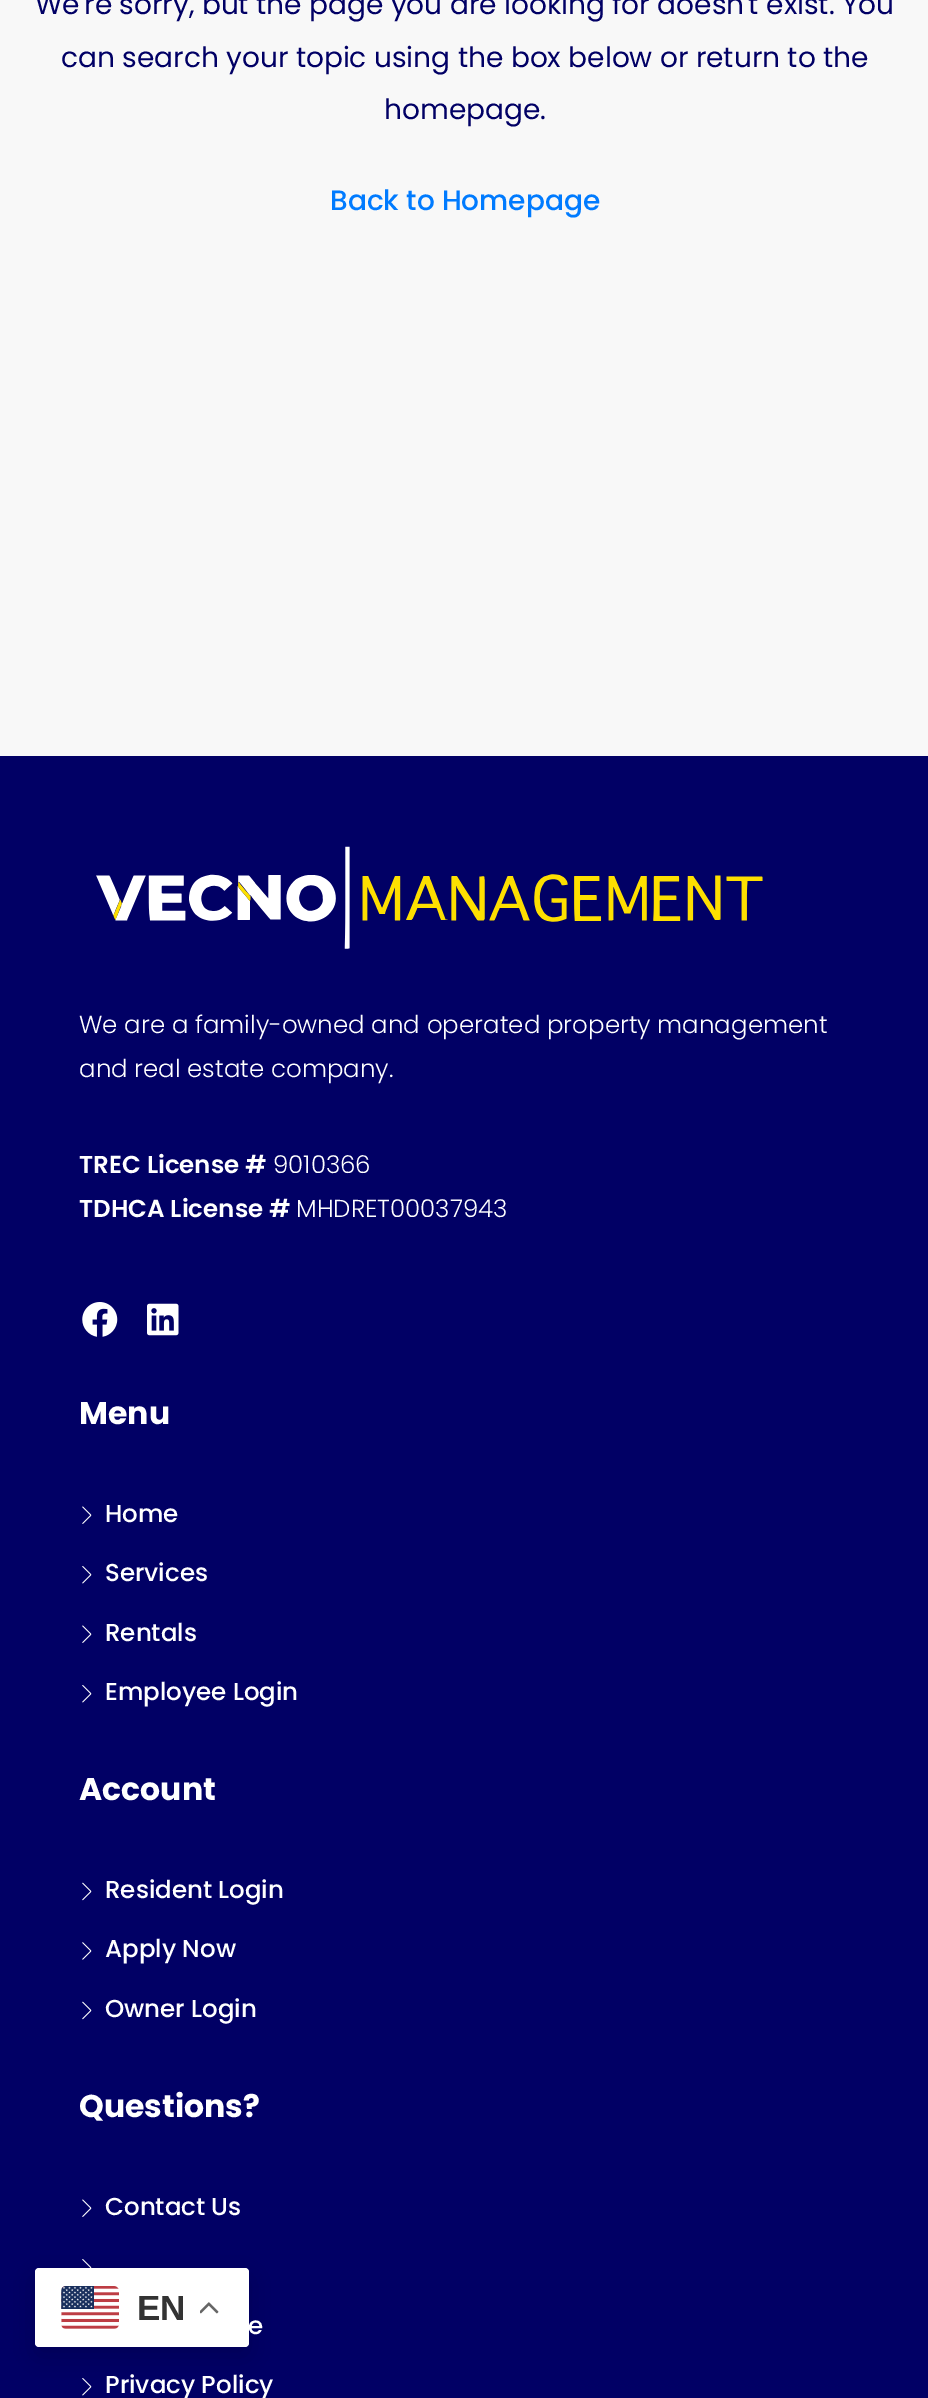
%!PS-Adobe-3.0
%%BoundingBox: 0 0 928 2398
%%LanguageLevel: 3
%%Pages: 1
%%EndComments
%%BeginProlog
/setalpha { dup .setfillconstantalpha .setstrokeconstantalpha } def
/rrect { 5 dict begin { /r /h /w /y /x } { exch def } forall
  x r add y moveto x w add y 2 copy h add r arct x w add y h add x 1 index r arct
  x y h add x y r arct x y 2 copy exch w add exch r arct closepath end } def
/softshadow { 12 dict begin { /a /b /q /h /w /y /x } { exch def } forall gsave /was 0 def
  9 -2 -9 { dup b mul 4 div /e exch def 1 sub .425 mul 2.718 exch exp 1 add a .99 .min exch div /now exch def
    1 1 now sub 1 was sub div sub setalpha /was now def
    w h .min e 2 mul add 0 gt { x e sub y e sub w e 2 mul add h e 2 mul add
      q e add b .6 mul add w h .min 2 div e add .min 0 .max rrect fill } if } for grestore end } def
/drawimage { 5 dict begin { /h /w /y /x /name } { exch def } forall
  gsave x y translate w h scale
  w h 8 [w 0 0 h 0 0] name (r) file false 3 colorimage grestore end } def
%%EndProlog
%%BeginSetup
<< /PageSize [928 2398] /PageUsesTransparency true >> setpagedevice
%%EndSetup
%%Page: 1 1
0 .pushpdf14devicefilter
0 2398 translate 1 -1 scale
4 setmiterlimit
0.973 setgray
0 0 928 2398 rectfill
0.004 0 0.396 setrgbcolor
0 756 928 1642 rectfill
(images/1.raw) 96 846 667 103 drawimage
(images/2.raw) 82 1302 36 35 drawimage
(images/3.raw) 147 1303 32 33 drawimage
(images/4.raw) 82 1506 10 18 drawimage
(images/5.raw) 82 1566 10 18 drawimage
(images/4.raw) 82 1625 10 18 drawimage
(images/5.raw) 82 1685 10 18 drawimage
(images/6.raw) 82 1882 10 19 drawimage
(images/7.raw) 82 1942 10 18 drawimage
(images/6.raw) 82 2001 10 19 drawimage
(images/4.raw) 82 2199 10 18 drawimage
(images/8.raw) 82 2259 10 9 drawimage
(images/5.raw) 82 2378 10 18 drawimage
0 setgray
35 2277 214 79 4 13 0.15 softshadow
1 setgray
35 2268 214 79 4 rrect fill
(images/9.raw) 61 2286 58 43 drawimage
(images/10.raw) 200 2302 19 12 drawimage
/Poppins-Regular [28 0 0 -28 0 0] selectfont
0.004 0 0.396 setrgbcolor
35 14 moveto (We're sorry, but the page you are looking for doesn't exist. You) show
61 67 moveto (can search your topic using the box below or return to the) show
384 119 moveto (homepage.) show
/Poppins-Medium [28 0 0 -28 0 0] selectfont
0 0.482 1 setrgbcolor
330 210 moveto (Back to Homepage) show
/Poppins-Light [24.5 0 0 -24.5 0 0] selectfont
1 setgray
79 1033 moveto (We are a family-owned and operated property management) show
79 1077 moveto (and real estate company.) show
/Poppins-SemiBold [24.5 0 0 -24.5 0 0] selectfont
79 1173 moveto (TREC License #) show
/Poppins-Light [24.5 0 0 -24.5 0 0] selectfont
273 1173 moveto (9010366) show
/Poppins-SemiBold [24.5 0 0 -24.5 0 0] selectfont
79 1217 moveto (TDHCA License #) show
/Poppins-Light [24.5 0 0 -24.5 0 0] selectfont
296 1217 moveto (MHDRET00037943) show
/Poppins-Bold [31.5 0 0 -31.5 0 0] selectfont
79 1424 moveto (Menu) show
/Poppins-Medium [24.5 0 0 -24.5 0 0] selectfont
105 1522 moveto (Home) show
105 1581 moveto (Services) show
105 1641 moveto (Rentals) show
105 1700 moveto (Employee Login) show
/Poppins-Bold [31.5 0 0 -31.5 0 0] selectfont
79 1800 moveto (Account) show
/Poppins-Medium [24.5 0 0 -24.5 0 0] selectfont
105 1898 moveto (Resident Login) show
105 1957 moveto (Apply Now) show
105 2017 moveto (Owner Login) show
/Poppins-Bold [31.5 0 0 -31.5 0 0] selectfont
79 2117 moveto (Questions?) show
/Poppins-Medium [24.5 0 0 -24.5 0 0] selectfont
105 2215 moveto (Contact Us) show
248 2334 moveto (e) show
105 2393 moveto (Privacy Policy) show
/LiberationSans-Bold [35 0 0 -35 0 0] selectfont
0.2 setgray
137 2320 moveto (EN) show
.poppdf14devicefilter showpage
%%EOF
